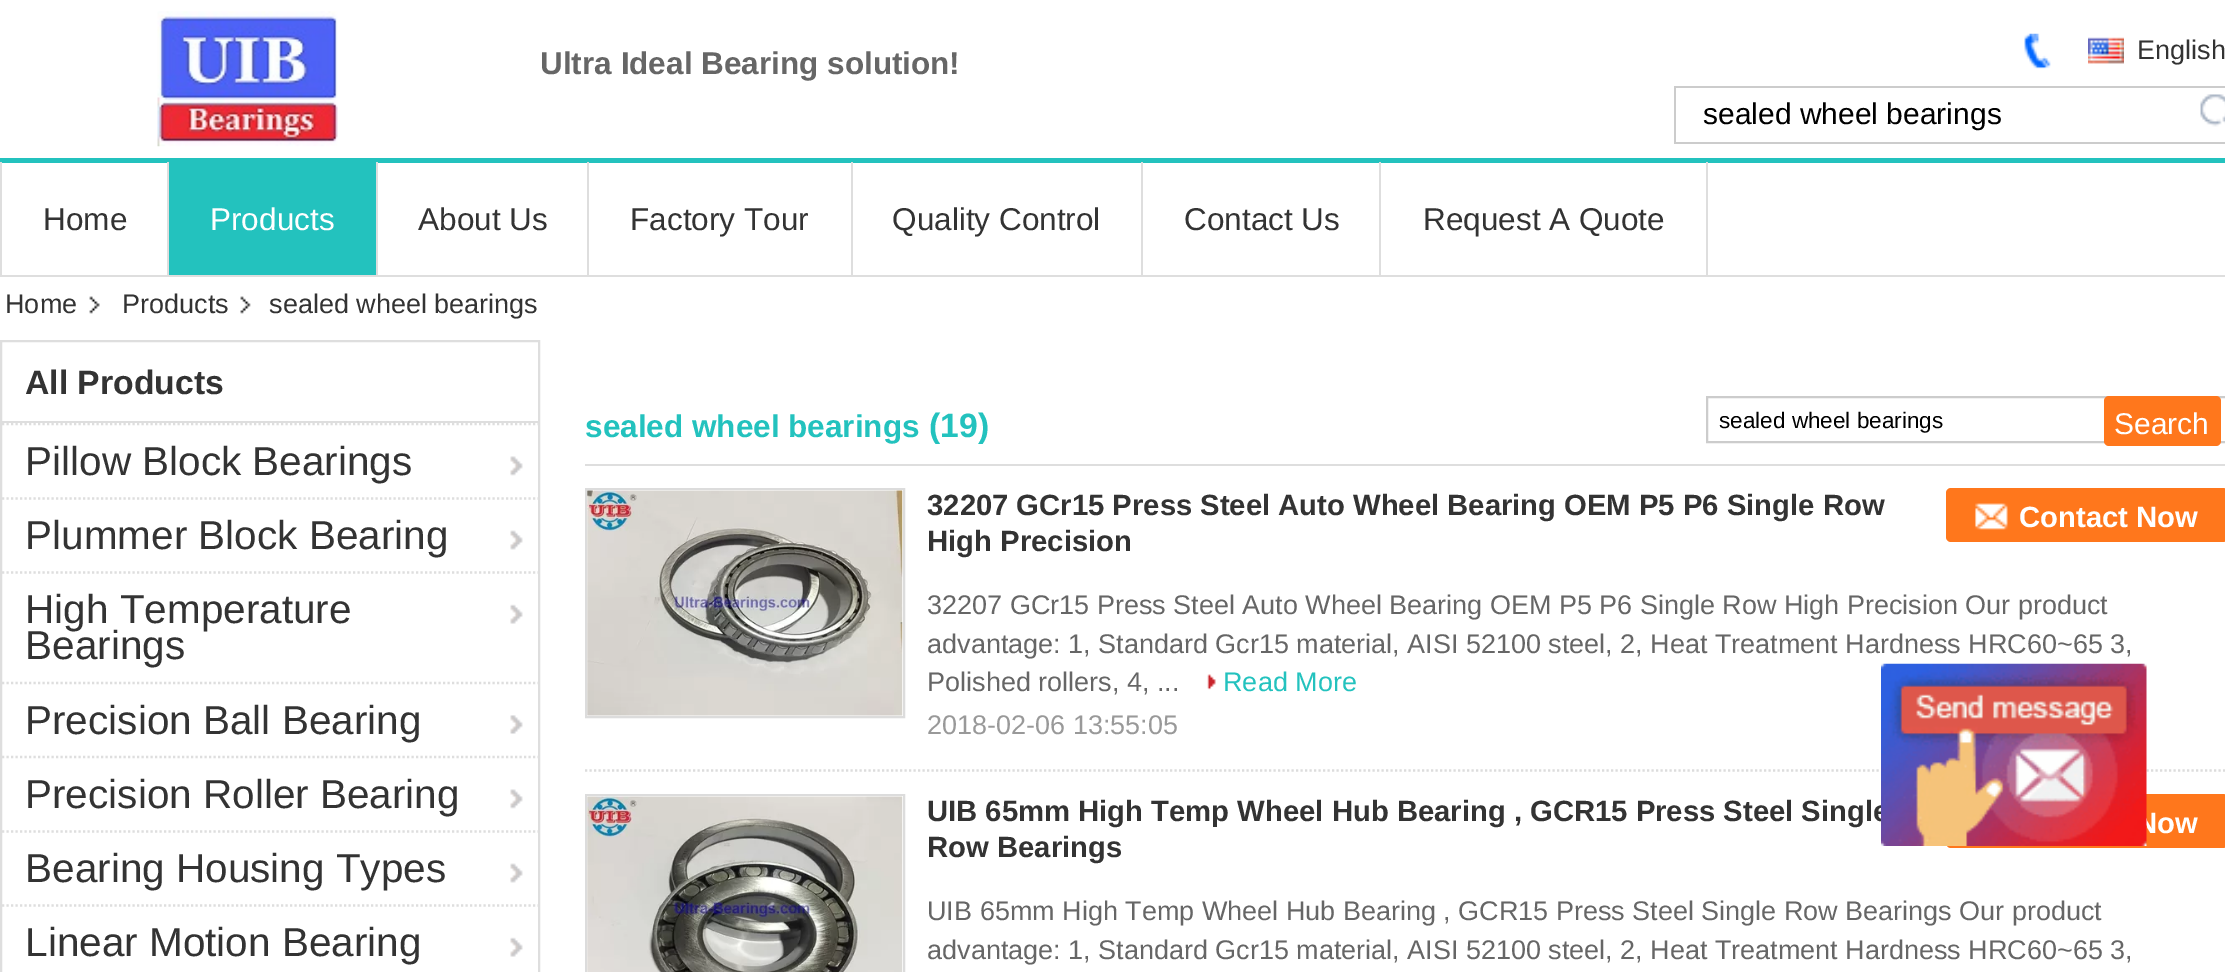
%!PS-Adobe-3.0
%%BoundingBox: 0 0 2225 972
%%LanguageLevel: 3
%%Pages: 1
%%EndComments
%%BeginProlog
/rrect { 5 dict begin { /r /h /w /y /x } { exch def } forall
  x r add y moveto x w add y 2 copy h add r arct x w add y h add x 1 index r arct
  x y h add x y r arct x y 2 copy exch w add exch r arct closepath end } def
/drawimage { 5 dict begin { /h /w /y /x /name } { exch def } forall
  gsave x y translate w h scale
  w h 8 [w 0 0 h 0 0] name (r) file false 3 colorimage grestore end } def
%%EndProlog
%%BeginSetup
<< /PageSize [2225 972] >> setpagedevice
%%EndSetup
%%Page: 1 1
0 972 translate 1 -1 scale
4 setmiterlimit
1 setgray
0 0 2225 972 rectfill
0.137 0.761 0.745 setrgbcolor
0 158 2225 5 rectfill
(images/1.raw) 157 11 181 136 drawimage
(images/2.raw) 2024 33 27 36 drawimage
(images/3.raw) 2088 37 36 27 drawimage
0.8 setgray
1674 86 551 2 rectfill
1674 142 551 2 rectfill
1674 86 2 58 rectfill
(images/4.raw) 2200 94 25 33 drawimage
0.871 setgray
0 275 2225 2 rectfill
0 162 2 113 rectfill
0.137 0.761 0.745 setrgbcolor
169 163 207 112 rectfill
0.871 setgray
167 162 2 113 rectfill
376 162 2 113 rectfill
587 162 2 113 rectfill
851 162 2 113 rectfill
1141 162 2 113 rectfill
1706 162 2 113 rectfill
1379 162 2 113 rectfill
(images/5.raw) 89 296 11 18 drawimage
(images/6.raw) 240 296 11 18 drawimage
2 setlinewidth
1 341 538 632 rectstroke
2.2 setlinewidth
[2.25 2.25] 0 setdash
newpath 2 424 moveto 538 424 lineto stroke
2 421 536 2 rectfill
(images/7.raw) 510 456 13 20 drawimage
(images/8.raw) 510 530 13 20 drawimage
newpath 2 498.5 moveto 538 498.5 lineto stroke
(images/9.raw) 510 604 13 20 drawimage
newpath 2 572.5 moveto 538 572.5 lineto stroke
(images/10.raw) 510 715 13 19 drawimage
newpath 2 683 moveto 538 683 lineto stroke
(images/7.raw) 510 789 13 20 drawimage
newpath 2 757 moveto 538 757 lineto stroke
(images/11.raw) 510 863 13 20 drawimage
newpath 2 831.5 moveto 538 831.5 lineto stroke
(images/12.raw) 510 937 13 20 drawimage
newpath 2 905.5 moveto 538 905.5 lineto stroke
585 464 1640 2 rectfill
0.8 setgray
2 setlinewidth
[] 0 setdash
1707 397 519 45 rectstroke
1 0.467 0.11 setrgbcolor
2104 396 117 50 5 rrect fill
0.863 setgray
2.2 setlinewidth
[2.25 2.25] 0 setdash
newpath 585 770.5 moveto 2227.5 770.5 lineto stroke
2 setlinewidth
[] 0 setdash
586 489 318 228 rectstroke
(images/13.raw) 587 490 316 226 drawimage
1 0.467 0.11 setrgbcolor
1946 488 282 54 5 rrect fill
(images/14.raw) 1975 503 33 27 drawimage
(images/15.raw) 1207 674 9 16 drawimage
0.863 setgray
586 795 318 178 rectstroke
(images/16.raw) 587 796 316 176 drawimage
1 0.467 0.11 setrgbcolor
1946 794 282 54 5 rrect fill
/LiberationSans-Bold [31.5 0 0 -31.5 0 0] selectfont
0.4 setgray
540 74 moveto (Ultra Ideal Bearing solution!) show
/LiberationSans-Regular [27 0 0 -27 0 0] selectfont
0.2 setgray
2137 59 moveto (English) show
/LiberationSans-Regular [30 0 0 -30 0 0] selectfont
0 setgray
1703 124 moveto (sealed wheel bearings) show
/LiberationSans-Regular [31.5 0 0 -31.5 0 0] selectfont
0.2 setgray
43 230 moveto (Home) show
1 setgray
210 230 moveto (Products) show
0.2 setgray
418 230 moveto (About Us) show
630 230 moveto (Factory Tour) show
892 230 moveto (Quality Control) show
1184 230 moveto (Contact Us) show
1423 230 moveto (Request A Quote) show
/LiberationSans-Regular [27 0 0 -27 0 0] selectfont
5 313 moveto (Home) show
122 313 moveto (Products) show
269 313 moveto (sealed wheel bearings) show
/LiberationSans-Bold [33.75 0 0 -33.75 0 0] selectfont
25 394 moveto (All Products) show
/LiberationSans-Regular [40.5 0 0 -40.5 0 0] selectfont
25 475 moveto (Pillow Block Bearings) show
25 549 moveto (Plummer Block Bearing) show
25 623 moveto (High Temperature) show
25 659 moveto (Bearings) show
25 734 moveto (Precision Ball Bearing) show
25 808 moveto (Precision Roller Bearing) show
25 882 moveto (Bearing Housing Types) show
25 956 moveto (Linear Motion Bearing) show
/LiberationSans-Bold [31.5 0 0 -31.5 0 0] selectfont
0.137 0.761 0.745 setrgbcolor
585 437 moveto (sealed wheel bearings) show
/LiberationSans-Bold [33.75 0 0 -33.75 0 0] selectfont
929 437 moveto (\(19\)) show
/LiberationSans-Regular [22.5 0 0 -22.5 0 0] selectfont
0 setgray
1719 428 moveto (sealed wheel bearings) show
/LiberationSans-Regular [30 0 0 -30 0 0] selectfont
1 setgray
2114 434 moveto (Search) show
/LiberationSans-Bold [29.25 0 0 -29.25 0 0] selectfont
0.2 setgray
927 515 moveto (32207 GCr15 Press Steel Auto Wheel Bearing OEM P5 P6 Single Row) show
1 setgray
2019 527 moveto (Contact Now) show
0.2 setgray
927 551 moveto (High Precision) show
/LiberationSans-Regular [27 0 0 -27 0 0] selectfont
0.4 setgray
927 614 moveto (32207 GCr15 Press Steel Auto Wheel Bearing OEM P5 P6 Single Row High Precision Our product) show
927 653 moveto (advantage: 1, Standard Gcr15 material, AISI 52100 steel, 2, Heat Treatment Hardness HRC60~65 3,) show
927 691 moveto (Polished rollers, 4, ...) show
0.137 0.761 0.745 setrgbcolor
1223 691 moveto (Read More) show
0.6 setgray
927 734 moveto (2018-02-06 13:55:05) show
/LiberationSans-Bold [29.25 0 0 -29.25 0 0] selectfont
0.2 setgray
927 821 moveto (UIB 65mm High Temp Wheel Hub Bearing , GCR15 Press Steel Single) show
1 setgray
2136 833 moveto (Now) show
0.2 setgray
927 857 moveto (Row Bearings) show
/LiberationSans-Regular [27 0 0 -27 0 0] selectfont
0.4 setgray
927 920 moveto (UIB 65mm High Temp Wheel Hub Bearing , GCR15 Press Steel Single Row Bearings Our product) show
927 959 moveto (advantage: 1, Standard Gcr15 material, AISI 52100 steel, 2, Heat Treatment Hardness HRC60~65 3,) show
(images/17.raw) 1881 663 266 183 drawimage
showpage
%%EOF
